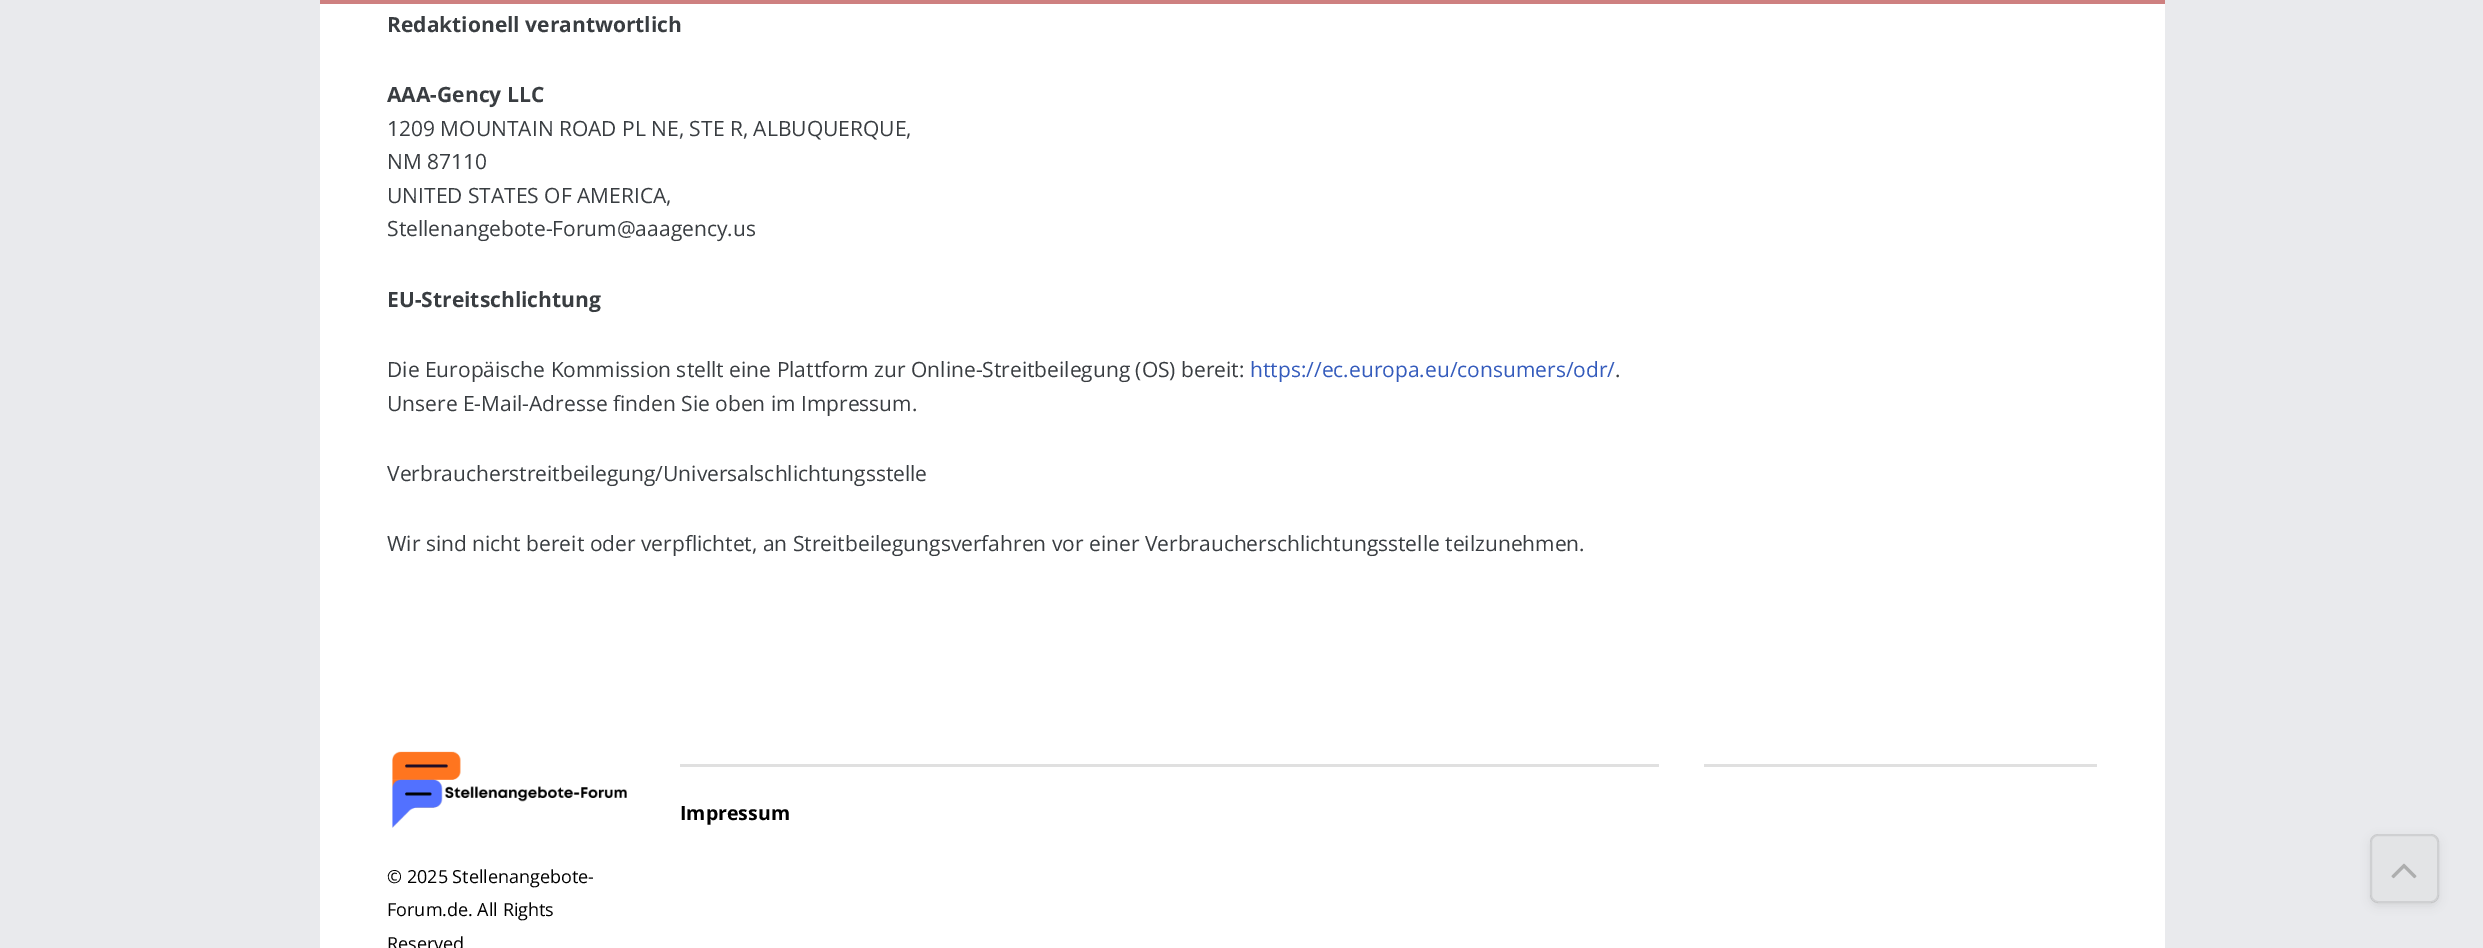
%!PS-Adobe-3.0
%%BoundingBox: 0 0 2483 948
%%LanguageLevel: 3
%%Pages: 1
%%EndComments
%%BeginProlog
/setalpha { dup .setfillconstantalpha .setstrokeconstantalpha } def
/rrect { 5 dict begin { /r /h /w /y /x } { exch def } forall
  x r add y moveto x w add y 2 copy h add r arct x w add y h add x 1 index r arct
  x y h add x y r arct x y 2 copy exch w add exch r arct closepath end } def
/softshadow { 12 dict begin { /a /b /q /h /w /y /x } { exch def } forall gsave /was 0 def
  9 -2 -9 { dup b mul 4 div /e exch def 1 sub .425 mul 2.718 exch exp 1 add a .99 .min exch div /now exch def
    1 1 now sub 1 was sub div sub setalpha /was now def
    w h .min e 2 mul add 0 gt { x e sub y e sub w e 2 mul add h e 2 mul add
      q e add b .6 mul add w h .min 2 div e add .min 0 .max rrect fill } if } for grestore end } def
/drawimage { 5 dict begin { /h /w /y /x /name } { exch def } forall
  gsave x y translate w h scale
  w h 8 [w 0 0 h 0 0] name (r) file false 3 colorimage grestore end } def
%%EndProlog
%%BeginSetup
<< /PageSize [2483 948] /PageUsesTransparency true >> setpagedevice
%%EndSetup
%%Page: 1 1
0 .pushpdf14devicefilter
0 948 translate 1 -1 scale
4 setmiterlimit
0.914 0.918 0.929 setrgbcolor
0 0 2483 948 rectfill
0.808 0.502 0.502 setrgbcolor
320 0 1845 4 rectfill
1 setgray
320 4 1845 944 rectfill
0.878 setgray
1704 764 393 3 rectfill
680 764 979 3 rectfill
(images/1.raw) 392 751 235 77 drawimage
gsave
newpath 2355 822 moveto 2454 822 lineto 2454 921 lineto 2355 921 lineto closepath 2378 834 moveto 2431 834 lineto 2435.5 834 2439 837.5 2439 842 curveto 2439 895 lineto 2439 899.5 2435.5 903 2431 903 curveto 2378 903 lineto 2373.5 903 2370 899.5 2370 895 curveto 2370 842 lineto 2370 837.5 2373.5 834 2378 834 curveto closepath eoclip newpath
0.184 setgray
2370 837 69 69 8 4.5 0.1 softshadow
grestore
0.15 setalpha
0.749 setgray
2370 834 69 69 8 rrect fill
0.11 setalpha
0.184 setgray
2 setlinewidth
2371 835 67 67 7 rrect stroke
1 setalpha
(images/2.raw) 2391 863 26 16 drawimage
/OpenSans-Bold [21 0 0 -21 0 0] selectfont
0.224 0.239 0.255 setrgbcolor
387 32 moveto (Redaktionell verantwortlich) show
387 102 moveto (AAA-Gency LLC) show
/OpenSans-Regular [21 0 0 -21 0 0] selectfont
387 136 moveto (1209 MOUNTAIN ROAD PL NE, STE R, ALBUQUERQUE,) show
387 169 moveto (NM 87110) show
387 203 moveto (UNITED STATES OF AMERICA,) show
387 236 moveto (Stellenangebote-Forum@aaagency.us) show
/OpenSans-Bold [21 0 0 -21 0 0] selectfont
387 307 moveto (EU-Streitschlichtung) show
/OpenSans-Regular [21 0 0 -21 0 0] selectfont
387 377 moveto (Die Europäische Kommission stellt eine Plattform zur Online-Streitbeilegung \(OS\) bereit:) show
0.204 0.357 0.737 setrgbcolor
1250 377 moveto (https://ec.europa.eu/consumers/odr/) show
0.224 0.239 0.255 setrgbcolor
1615 377 moveto (.) show
387 411 moveto (Unsere E-Mail-Adresse finden Sie oben im Impressum.) show
387 481 moveto (Verbraucherstreitbeilegung/Universalschlichtungsstelle) show
387 551 moveto (Wir sind nicht bereit oder verpflichtet, an Streitbeilegungsverfahren vor einer Verbraucherschlichtungsstelle teilzunehmen.) show
/OpenSans-Bold [19.5 0 0 -19.5 0 0] selectfont
0 setgray
680 820 moveto (Impressum) show
/OpenSans-Regular [18 0 0 -18 0 0] selectfont
387 883 moveto (© 2025 Stellenangebote-) show
387 916 moveto (Forum.de. All Rights) show
387 950 moveto (Reserved) show
.poppdf14devicefilter showpage
%%EOF
